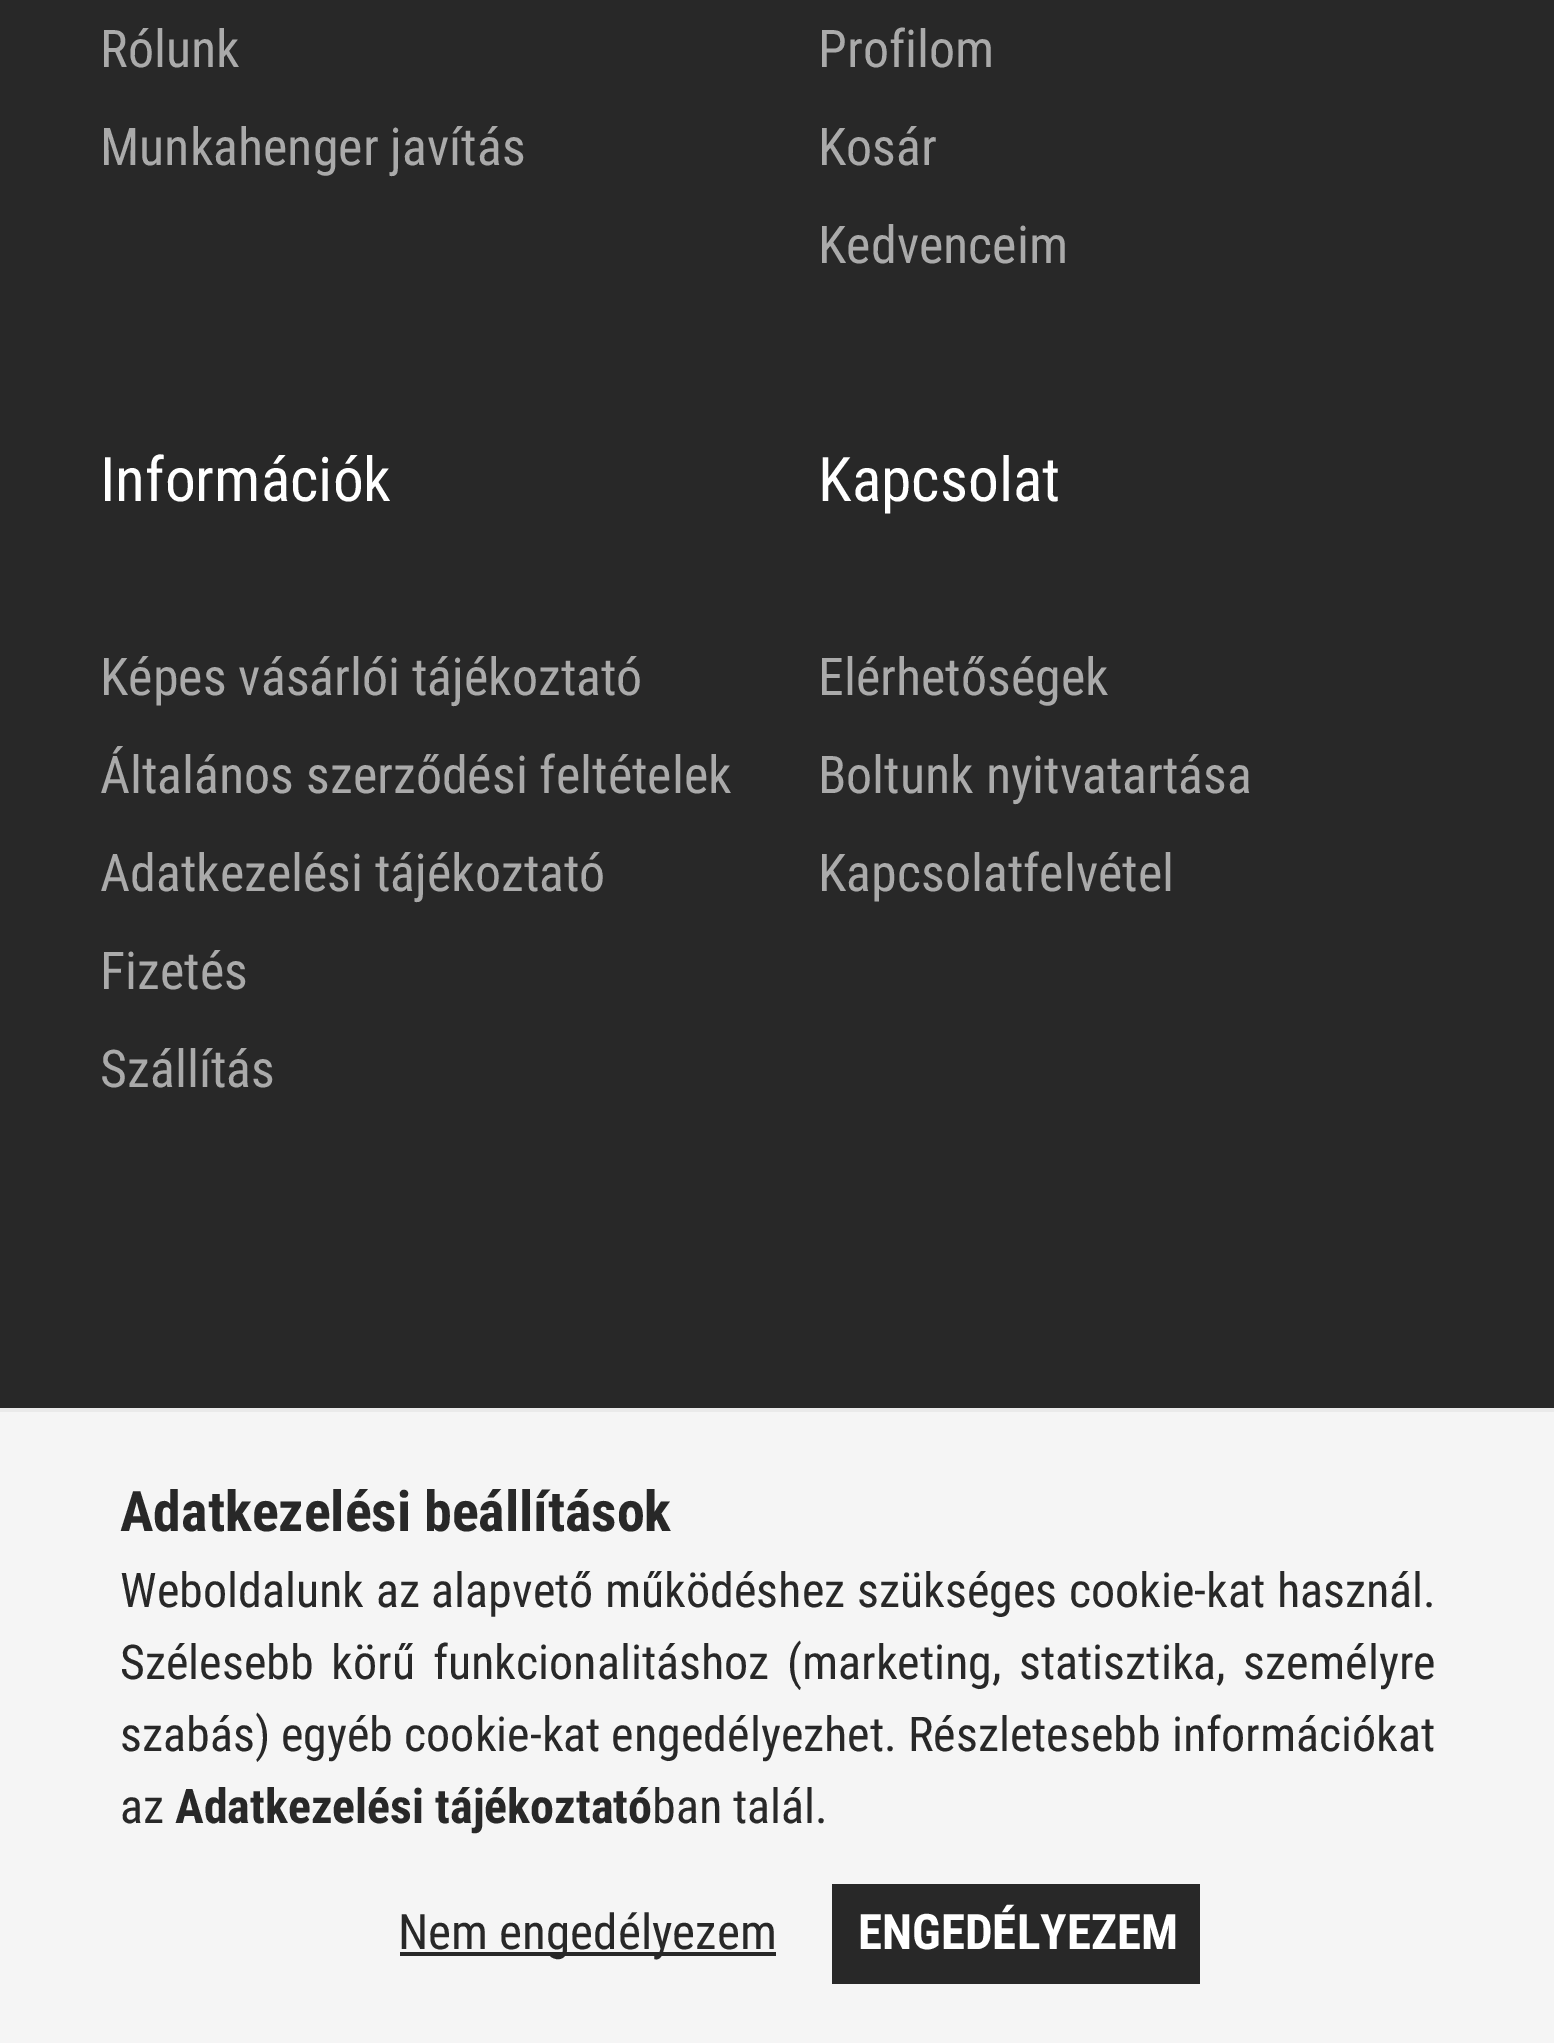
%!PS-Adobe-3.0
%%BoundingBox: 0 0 1554 2043
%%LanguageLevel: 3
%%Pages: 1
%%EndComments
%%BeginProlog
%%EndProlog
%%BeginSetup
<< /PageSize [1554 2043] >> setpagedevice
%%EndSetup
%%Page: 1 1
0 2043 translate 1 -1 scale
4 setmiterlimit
0.157 setgray
0 0 1554 2043 rectfill
0.961 setgray
0 1412 1554 631 rectfill
0.918 setgray
0 1408 1554 4 rectfill
0.157 setgray
400 1952 376 4 rectfill
832 1884 368 100 rectfill
/RobotoCondensed-Regular [52 0 0 -52 0 0] selectfont
0.667 setgray
100 67 moveto (Rólunk) show
100 165 moveto (Munkahenger javítás) show
818 67 moveto (Profilom) show
818 165 moveto (Kosár) show
818 263 moveto (Kedvenceim) show
/RobotoCondensed-Regular [61.5 0 0 -61.5 0 0] selectfont
1 setgray
100 501 moveto (Információk) show
/RobotoCondensed-Regular [52 0 0 -52 0 0] selectfont
0.667 setgray
100 695 moveto (Képes vásárlói tájékoztató) show
100 793 moveto (Általános szerződési feltételek) show
100 891 moveto (Adatkezelési tájékoztató) show
100 989 moveto (Fizetés) show
100 1087 moveto (Szállítás) show
/RobotoCondensed-Regular [61.5 0 0 -61.5 0 0] selectfont
1 setgray
818 501 moveto (Kapcsolat) show
/RobotoCondensed-Regular [52 0 0 -52 0 0] selectfont
0.667 setgray
818 695 moveto (Elérhetőségek) show
818 793 moveto (Boltunk nyitvatartása) show
818 891 moveto (Kapcsolatfelvétel) show
/RobotoCondensed-Bold [56 0 0 -56 0 0] selectfont
0.157 setgray
120 1531 moveto (Adatkezelési beállítások) show
/RobotoCondensed-Regular [48 0 0 -48 0 0] selectfont
120 1607 moveto 0.75 0 32 (Weboldalunk az alapvető működéshez szükséges cookie-kat használ.) widthshow
120 1679 moveto 6.75 0 32 (Szélesebb körű funkcionalitáshoz \(marketing, statisztika, személyre) widthshow
120 1751 moveto (szabás\) egyéb cookie-kat engedélyezhet. Részletesebb információkat) show
120 1823 moveto (az) show
/RobotoCondensed-Bold [48 0 0 -48 0 0] selectfont
175 1823 moveto (Adatkezelési tájékoztató) show
/RobotoCondensed-Regular [48 0 0 -48 0 0] selectfont
652 1823 moveto (ban talál.) show
/RobotoCondensed-Regular [49 0 0 -49 0 0] selectfont
398 1949 moveto (Nem engedélyezem) show
/RobotoCondensed-Bold [49 0 0 -49 0 0] selectfont
1 setgray
858 1949 moveto (ENGEDÉLYEZEM) show
showpage
%%EOF
